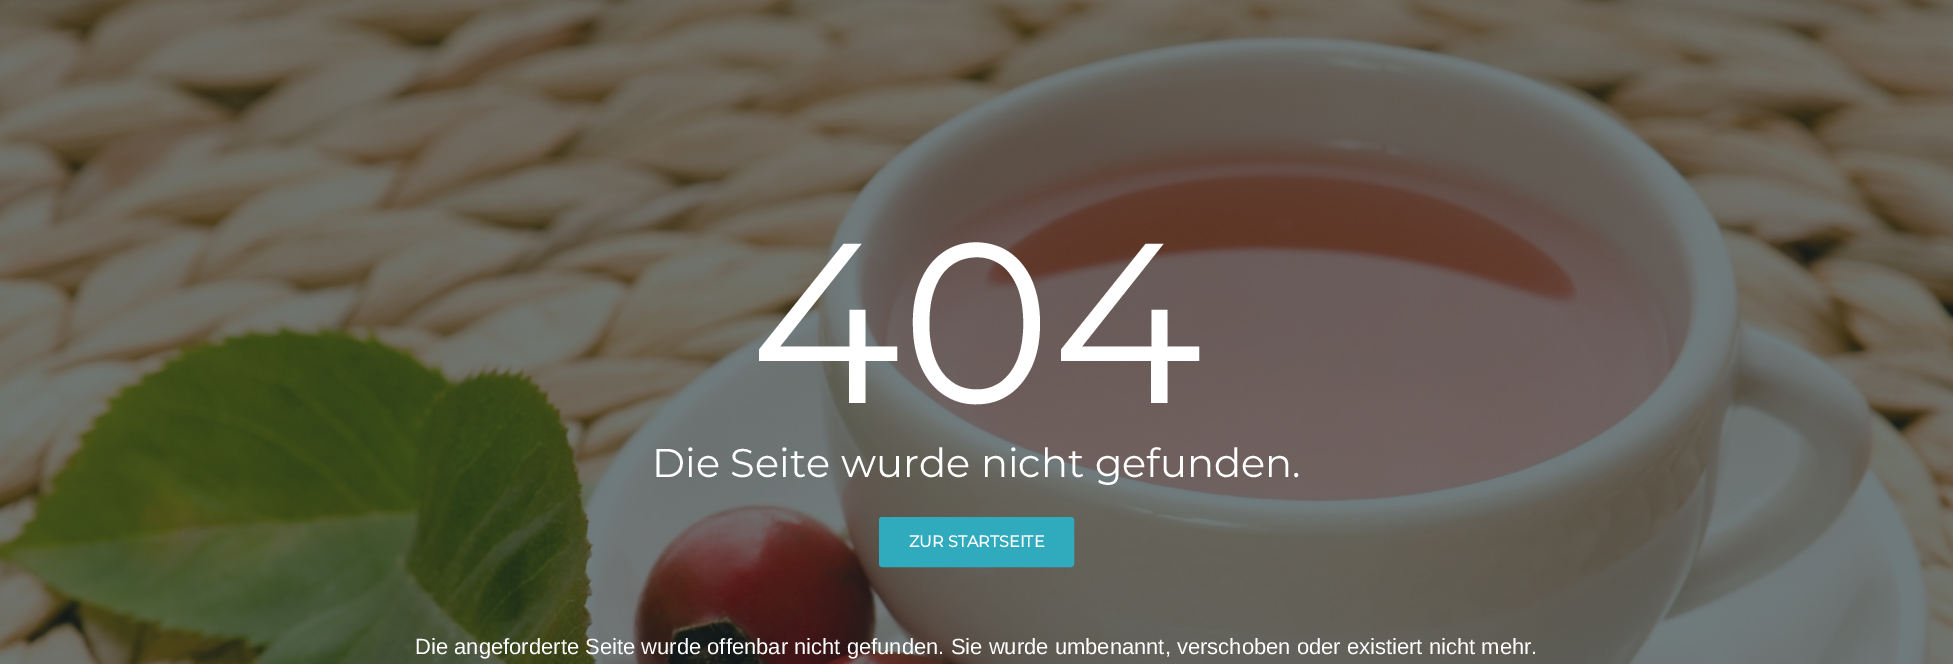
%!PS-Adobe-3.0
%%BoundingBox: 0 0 1953 664
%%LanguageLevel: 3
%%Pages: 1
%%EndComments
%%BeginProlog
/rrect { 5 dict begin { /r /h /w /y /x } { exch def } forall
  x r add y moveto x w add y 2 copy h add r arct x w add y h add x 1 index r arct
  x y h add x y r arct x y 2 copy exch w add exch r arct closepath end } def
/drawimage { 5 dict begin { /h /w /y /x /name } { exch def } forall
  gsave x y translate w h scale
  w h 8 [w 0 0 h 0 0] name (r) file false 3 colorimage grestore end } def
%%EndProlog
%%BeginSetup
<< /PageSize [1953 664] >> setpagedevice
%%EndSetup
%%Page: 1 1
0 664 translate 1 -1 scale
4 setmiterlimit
1 setgray
0 0 1953 664 rectfill
(images/1.raw) 0 0 1953 664 drawimage
0.188 0.671 0.741 setrgbcolor
880 518 193 48 2 rrect gsave fill grestore
2 setlinewidth
stroke
/Montserrat-Thin [228 0 0 -228 0 0] selectfont
1 setgray
750 403 moveto (404) show
/Montserrat-Thin [40 0 0 -40 0 0] selectfont
652 477 moveto (Die Seite wurde nicht gefunden.) show
/Montserrat-Bold [16 0 0 -16 0 0] selectfont
909 547 moveto (ZUR STARTSEITE) show
/LiberationSans-Regular [22 0 0 -22 0 0] selectfont
415 654 moveto (Die angeforderte Seite wurde offenbar nicht gefunden. Sie wurde umbenannt, verschoben oder existiert nicht mehr.) show
showpage
%%EOF
